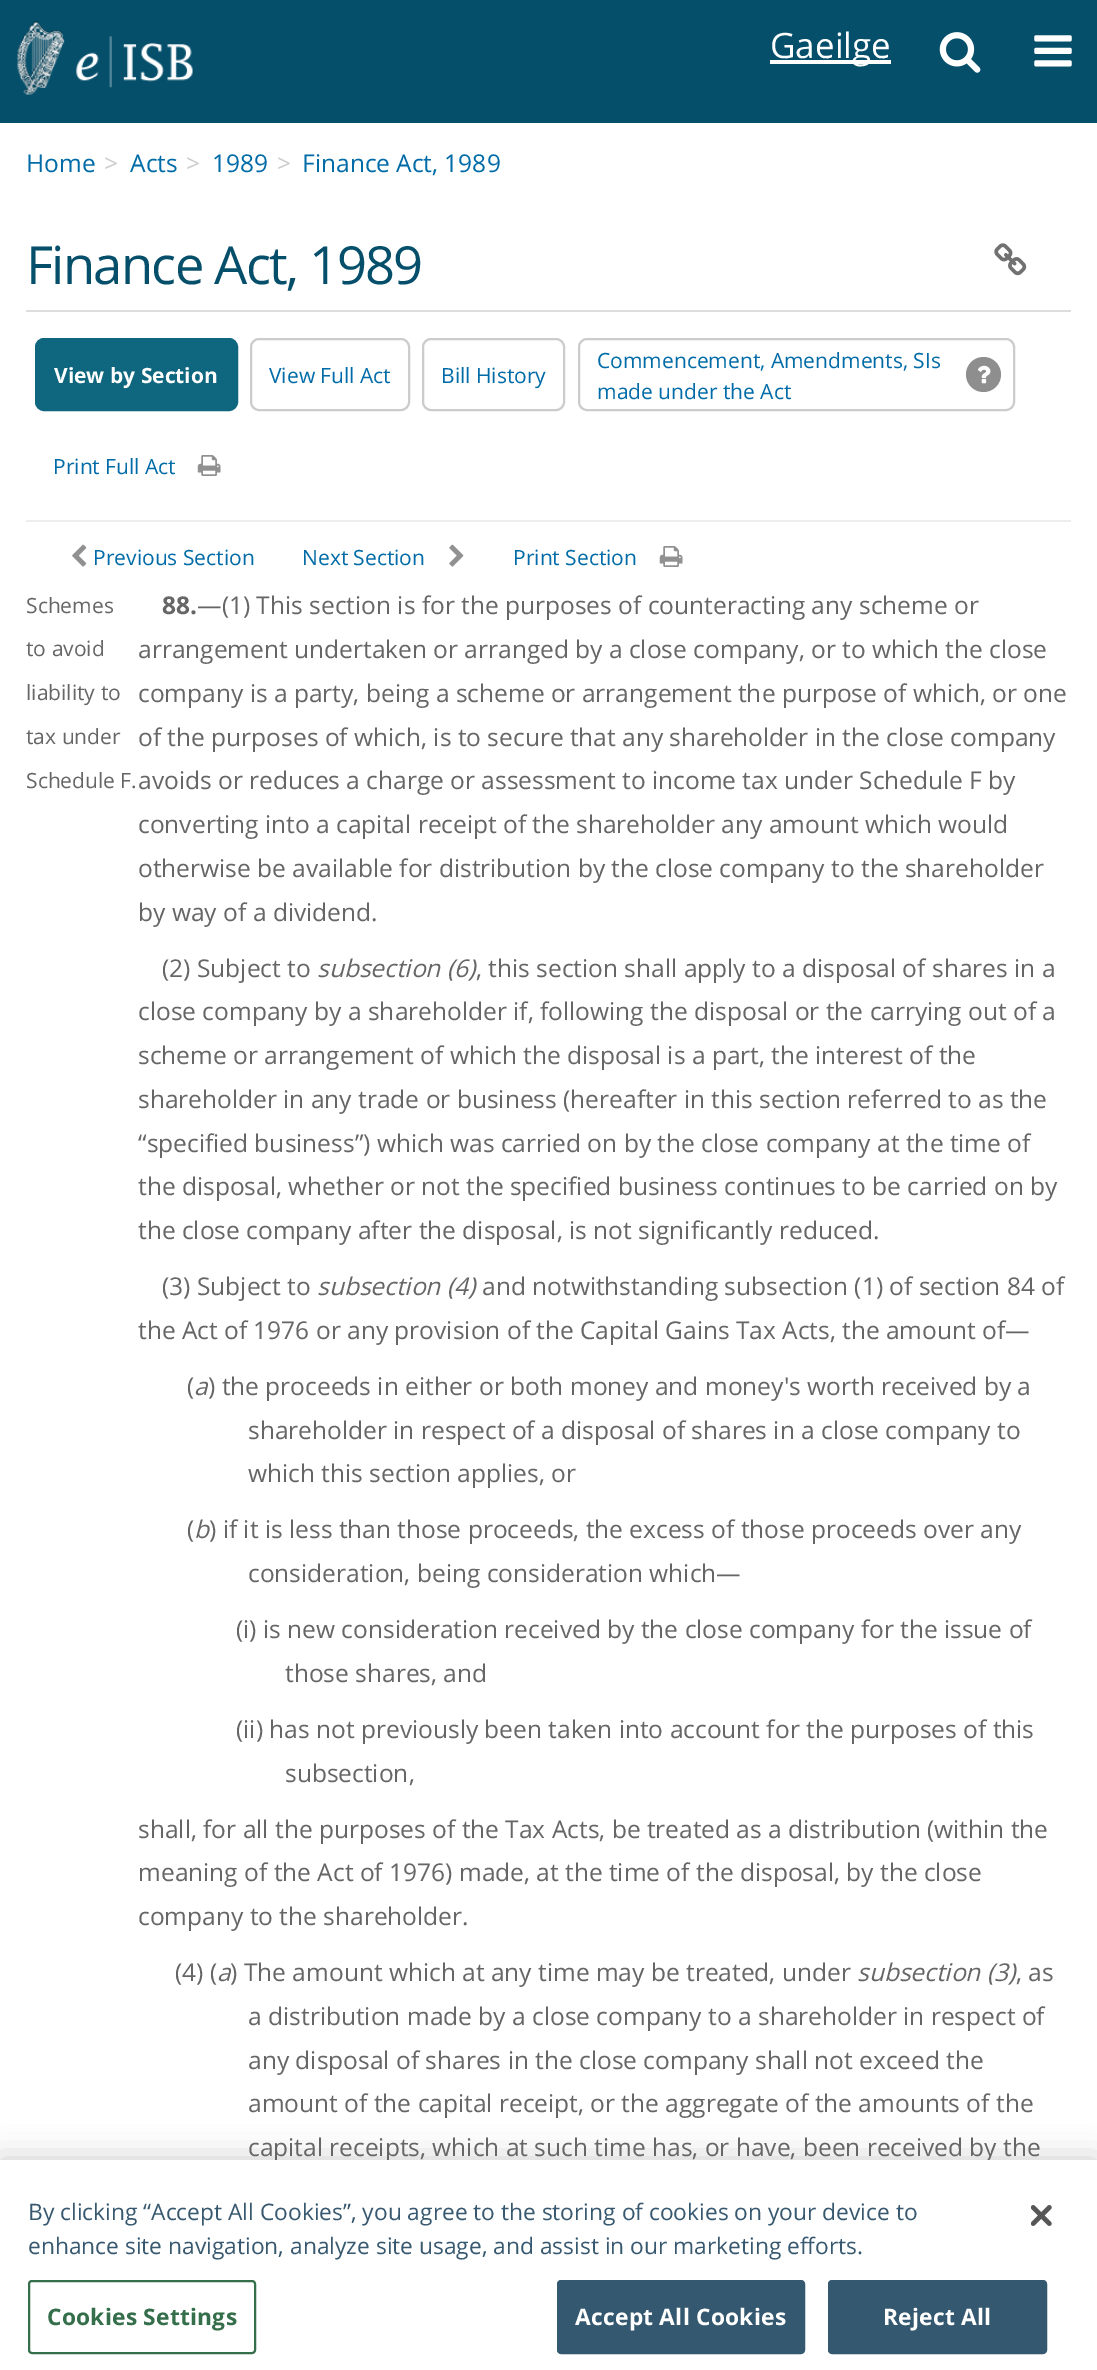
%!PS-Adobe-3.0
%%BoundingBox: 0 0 1097 2370
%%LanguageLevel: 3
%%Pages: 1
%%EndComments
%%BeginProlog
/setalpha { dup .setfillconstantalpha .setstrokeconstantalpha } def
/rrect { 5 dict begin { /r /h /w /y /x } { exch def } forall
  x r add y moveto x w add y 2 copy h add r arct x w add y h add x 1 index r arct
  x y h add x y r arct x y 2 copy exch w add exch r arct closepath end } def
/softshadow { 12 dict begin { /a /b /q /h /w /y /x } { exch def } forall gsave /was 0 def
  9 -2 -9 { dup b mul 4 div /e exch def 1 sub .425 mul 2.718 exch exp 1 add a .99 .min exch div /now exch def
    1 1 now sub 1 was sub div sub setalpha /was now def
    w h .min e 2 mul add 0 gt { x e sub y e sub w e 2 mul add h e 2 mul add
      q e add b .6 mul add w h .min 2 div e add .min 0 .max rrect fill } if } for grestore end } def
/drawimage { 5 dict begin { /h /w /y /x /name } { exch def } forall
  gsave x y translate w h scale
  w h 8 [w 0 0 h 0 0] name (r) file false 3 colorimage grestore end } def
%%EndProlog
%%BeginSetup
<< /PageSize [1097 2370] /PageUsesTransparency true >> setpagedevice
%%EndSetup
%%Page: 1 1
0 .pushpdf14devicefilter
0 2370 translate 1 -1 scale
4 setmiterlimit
1 setgray
0 0 1097 2370 rectfill
0.02 0.31 0.42 setrgbcolor
0 0 1097 123 rectfill
(images/1.raw) 17 21 176 74 drawimage
1 setgray
770 60 121 4 rectfill
(images/2.raw) 939 32 42 41 drawimage
(images/3.raw) 1034 35 38 32 drawimage
0.867 setgray
26 310 1045 2 rectfill
(images/4.raw) 994 243 33 33 drawimage
0.055 0.404 0.498 setrgbcolor
36 339 201 71 8 rrect gsave fill grestore
2 setlinewidth
stroke
0.8 setgray
251 339 158 71 8 rrect stroke
423 339 141 71 8 rrect stroke
579 339 435 71 8 rrect stroke
0.557 setgray
newpath 983.5 374.5 17.5 0 360 arc closepath fill
(images/5.raw) 977 365 14 19 drawimage
(images/6.raw) 197 455 24 21 drawimage
0.933 setgray
26 520 1045 2 rectfill
(images/7.raw) 72 544 15 23 drawimage
(images/8.raw) 449 544 15 23 drawimage
(images/6.raw) 659 546 24 21 drawimage
0 setgray
0 2160 1097 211 0 16 0.2 softshadow
/OpenSans-Regular [35 0 0 -35 0 0] selectfont
1 setgray
770 58 moveto (Gaeilge) show
/OpenSans-Regular [24.5 0 0 -24.5 0 0] selectfont
0 0.42 0.655 setrgbcolor
26 172 moveto (Home) show
0.8 setgray
104 172 moveto (>) show
0 0.42 0.655 setrgbcolor
130 172 moveto (Acts) show
0.8 setgray
186 172 moveto (>) show
0 0.42 0.655 setrgbcolor
212 172 moveto (1989) show
0.8 setgray
277 172 moveto (>) show
0 0.42 0.655 setrgbcolor
302 172 moveto (Finance Act, 1989) show
/OpenSans-Regular [52.5 0 0 -52.5 0 0] selectfont
0.02 0.31 0.42 setrgbcolor
26 284 moveto -1.75 0 (Finance Act, 1989) ashow
/OpenSans-Bold [21 0 0 -21 0 0] selectfont
1 setgray
54 383 moveto (View by Section) show
/OpenSans-Regular [21 0 0 -21 0 0] selectfont
0 0.42 0.655 setrgbcolor
269 383 moveto (View Full Act) show
441 383 moveto (Bill History) show
597 368 moveto (Commencement, Amendments, SIs) show
597 399 moveto (made under the Act) show
53 474 moveto (Print Full Act) show
93 565 moveto (Previous Section) show
302 565 moveto (Next Section) show
513 565 moveto (Print Section) show
0.4 setgray
26 613 moveto (Schemes) show
26 656 moveto (to avoid) show
26 700 moveto (liability to) show
26 744 moveto (tax under) show
26 788 moveto (Schedule F.) show
/OpenSans-Bold [24.5 0 0 -24.5 0 0] selectfont
162 614 moveto (88.) show
/OpenSans-Regular [24.5 0 0 -24.5 0 0] selectfont
197 614 moveto (—\(1\) This section is for the purposes of counteracting any scheme or) show
138 658 moveto (arrangement undertaken or arranged by a close company, or to which the close) show
138 702 moveto (company is a party, being a scheme or arrangement the purpose of which, or one) show
138 746 moveto (of the purposes of which, is to secure that any shareholder in the close company) show
138 789 moveto (avoids or reduces a charge or assessment to income tax under Schedule F by) show
138 833 moveto (converting into a capital receipt of the shareholder any amount which would) show
138 877 moveto (otherwise be available for distribution by the close company to the shareholder) show
138 921 moveto (by way of a dividend.) show
162 977 moveto (\(2\) Subject to) show
/OpenSans-Italic [24.5 0 0 -24.5 0 0] selectfont
317 977 moveto (subsection \(6\)) show
/OpenSans-Regular [24.5 0 0 -24.5 0 0] selectfont
476 977 moveto (, this section shall apply to a disposal of shares in a) show
138 1020 moveto (close company by a shareholder if, following the disposal or the carrying out of a) show
138 1064 moveto (scheme or arrangement of which the disposal is a part, the interest of the) show
138 1108 moveto (shareholder in any trade or business \(hereafter in this section referred to as the) show
138 1152 moveto (“specified business”\) which was carried on by the close company at the time of) show
138 1195 moveto (the disposal, whether or not the specified business continues to be carried on by) show
138 1239 moveto (the close company after the disposal, is not significantly reduced.) show
162 1295 moveto (\(3\) Subject to) show
/OpenSans-Italic [24.5 0 0 -24.5 0 0] selectfont
317 1295 moveto (subsection \(4\)) show
/OpenSans-Regular [24.5 0 0 -24.5 0 0] selectfont
482 1295 moveto (and notwithstanding subsection \(1\) of section 84 of) show
138 1339 moveto (the Act of 1976 or any provision of the Capital Gains Tax Acts, the amount of—) show
187 1395 moveto (\() show
/OpenSans-Italic [24.5 0 0 -24.5 0 0] selectfont
194 1395 moveto (a) show
/OpenSans-Regular [24.5 0 0 -24.5 0 0] selectfont
208 1395 moveto (\) the proceeds in either or both money and money's worth received by a) show
248 1439 moveto (shareholder in respect of a disposal of shares in a close company to) show
248 1482 moveto (which this section applies, or) show
187 1538 moveto (\() show
/OpenSans-Italic [24.5 0 0 -24.5 0 0] selectfont
194 1538 moveto (b) show
/OpenSans-Regular [24.5 0 0 -24.5 0 0] selectfont
209 1538 moveto (\) if it is less than those proceeds, the excess of those proceeds over any) show
248 1582 moveto (consideration, being consideration which—) show
236 1638 moveto (\(i\) is new consideration received by the close company for the issue of) show
285 1682 moveto (those shares, and) show
236 1738 moveto (\(ii\) has not previously been taken into account for the purposes of this) show
285 1782 moveto (subsection,) show
138 1838 moveto (shall, for all the purposes of the Tax Acts, be treated as a distribution \(within the) show
138 1881 moveto (meaning of the Act of 1976\) made, at the time of the disposal, by the close) show
138 1925 moveto (company to the shareholder.) show
175 1981 moveto (\(4\) \() show
/OpenSans-Italic [24.5 0 0 -24.5 0 0] selectfont
217 1981 moveto (a) show
/OpenSans-Regular [24.5 0 0 -24.5 0 0] selectfont
230 1981 moveto (\) The amount which at any time may be treated, under) show
/OpenSans-Italic [24.5 0 0 -24.5 0 0] selectfont
857 1981 moveto (subsection \(3\)) show
/OpenSans-Regular [24.5 0 0 -24.5 0 0] selectfont
1016 1981 moveto (, as) show
248 2025 moveto (a distribution made by a close company to a shareholder in respect of) show
248 2069 moveto (any disposal of shares in the close company shall not exceed the) show
248 2112 moveto (amount of the capital receipt, or the aggregate of the amounts of the) show
248 2156 moveto (capital receipts, which at such time has, or have, been received by the) show
1 setgray
0 2160 1097 210 rectfill
/OpenSans-Regular [22.75 0 0 -22.75 0 0] selectfont
0.216 0.345 0.435 setrgbcolor
28 2220 moveto (By clicking “Accept All Cookies”, you agree to the storing of cookies on your device to) show
28 2254 moveto (enhance site navigation, analyze site usage, and assist in our marketing efforts.) show
0.204 0.431 0.29 setrgbcolor
29 2281 226 72 3 rrect stroke
/OpenSans-Bold [22.75 0 0 -22.75 0 0] selectfont
47 2325 moveto 0.25 0 (Cookies Settings) ashow
0.204 0.345 0.435 setrgbcolor
558 2281 246 72 3 rrect gsave fill grestore
stroke
1 setgray
575 2325 moveto 0.25 0 (Accept All Cookies) ashow
0.204 0.345 0.435 setrgbcolor
829 2281 217 72 3 rrect gsave fill grestore
stroke
1 setgray
883 2325 moveto 0.25 0 (Reject All) ashow
(images/9.raw) 1031 2205 21 21 drawimage
.poppdf14devicefilter showpage
%%EOF
